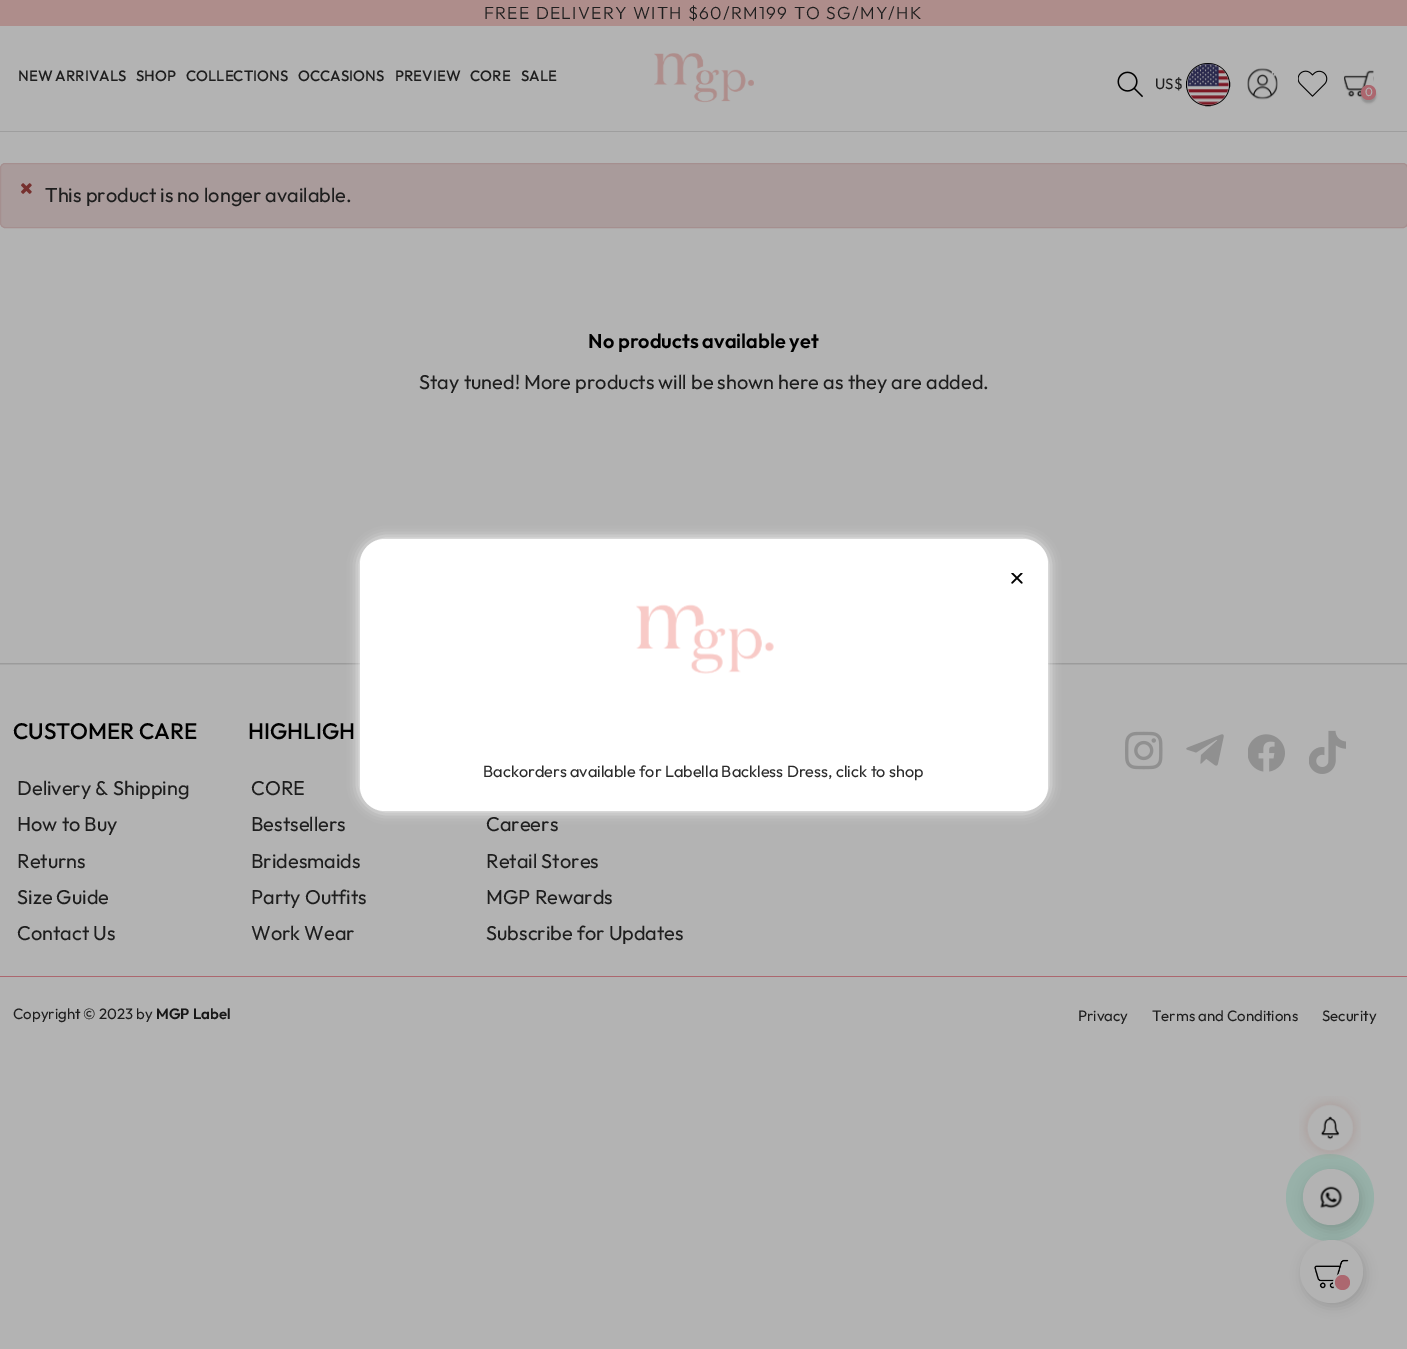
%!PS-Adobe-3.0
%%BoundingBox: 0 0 1407 1349
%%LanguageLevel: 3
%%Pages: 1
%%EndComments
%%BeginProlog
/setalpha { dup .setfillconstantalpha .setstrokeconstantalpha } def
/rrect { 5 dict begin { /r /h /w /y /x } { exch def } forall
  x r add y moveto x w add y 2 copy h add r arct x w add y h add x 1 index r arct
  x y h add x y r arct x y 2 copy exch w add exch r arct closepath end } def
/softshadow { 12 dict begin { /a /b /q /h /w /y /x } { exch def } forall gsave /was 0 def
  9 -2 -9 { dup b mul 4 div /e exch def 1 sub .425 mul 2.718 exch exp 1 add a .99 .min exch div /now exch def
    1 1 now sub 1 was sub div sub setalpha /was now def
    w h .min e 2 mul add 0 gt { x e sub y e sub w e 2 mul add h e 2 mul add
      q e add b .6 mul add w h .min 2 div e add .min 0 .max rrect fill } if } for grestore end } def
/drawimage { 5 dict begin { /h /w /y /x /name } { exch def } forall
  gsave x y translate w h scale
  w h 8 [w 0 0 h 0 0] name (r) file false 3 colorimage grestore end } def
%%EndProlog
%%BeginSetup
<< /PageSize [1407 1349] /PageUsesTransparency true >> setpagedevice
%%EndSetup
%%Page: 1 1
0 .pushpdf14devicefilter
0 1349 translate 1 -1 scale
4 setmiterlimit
0.702 setgray
0 0 1407 1349 rectfill
0.62 setgray
0 131 1407 1 rectfill
0.682 0.553 0.545 setrgbcolor
0 0 1407 26 rectfill
(images/1.raw) 654 53 100 50 drawimage
(images/2.raw) 1117 71 26 27 drawimage
0 setgray
1186.5 63.5 43 42 21 rrect stroke
(images/3.raw) 1187 63 42 43 drawimage
(images/4.raw) 1247 68 31 32 drawimage
(images/5.raw) 1298 70 30 27 drawimage
(images/6.raw) 1343 70 31 27 drawimage
1361 88 15 15 7.5 1 0.2 softshadow
0.675 0.404 0.435 setrgbcolor
newpath 1368.5 92.5 7.5 0 360 arc closepath fill
0.596 0.694 0.663 setrgbcolor
1286 1154 88 87 43.5 rrect fill
0 setgray
1305 1173 56 56 28 6 0.15 softshadow
(images/7.raw) 1299 1096 62 63 drawimage
0.663 0.608 0.608 setrgbcolor
0.5 163.5 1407 64 4.5 rrect gsave fill grestore
0.647 0.561 0.561 setrgbcolor
stroke
(images/8.raw) 21 183 11 11 drawimage
0.608 setgray
0 663 1407 1 rectfill
0.675 0.404 0.435 setrgbcolor
0 976 1407 1 rectfill
0.655 setgray
0 664 1407 1 rectfill
1 setgray
360 539 688 272 25 6 1 softshadow
360 539 688 272 25 rrect fill
(images/9.raw) 1011 573 12 11 drawimage
(images/10.raw) 636 604 138 70 drawimage
(images/11.raw) 1125 731 38 39 drawimage
(images/12.raw) 1186 734 38 32 drawimage
(images/13.raw) 1248 734 37 38 drawimage
(images/14.raw) 1309 730 37 44 drawimage
0.702 setgray
newpath 1331 1197 28 0 360 arc closepath fill
(images/15.raw) 1320 1186 23 23 drawimage
0 setgray
1303 1244 62 62 31 6 0.15 softshadow
0.702 setgray
newpath 1331.5 1271.5 31.5 0 360 arc closepath fill
(images/16.raw) 1314 1259 35 30 drawimage
3 setlinewidth
newpath 1343 1283 8.5 0 360 arc closepath stroke
0.675 0.404 0.435 setrgbcolor
newpath 1342.5 1282.5 7.5 0 360 arc closepath fill
/Outfit-Light [17.5 0 0 -17.5 0 0] selectfont
0.118 setgray
484 19 moveto 1.25 0 (FREE DELIVERY WITH $60/RM199 TO SG/MY/HK) ashow
/Outfit-Medium [15 0 0 -15 0 0] selectfont
18 81 moveto (NEW ARRIVALS) show
136 81 moveto (SHOP) show
186 81 moveto (COLLECTIONS) show
298 81 moveto (OCCASIONS) show
395 81 moveto (PREVIEW) show
470 81 moveto (CORE) show
521 81 moveto (SALE) show
/Outfit-Regular [15 0 0 -15 0 0] selectfont
1155 89 moveto (US$) show
/Outfit-Regular [12 0 0 -12 0 0] selectfont
0.702 setgray
1365 96 moveto (0) show
/Outfit-Regular [20 0 0 -20 0 0] selectfont
0.118 setgray
45 202 moveto (This product is no longer available.) show
/Outfit-SemiBold [20 0 0 -20 0 0] selectfont
0 setgray
588 348 moveto (No products available yet) show
/Outfit-Regular [20 0 0 -20 0 0] selectfont
0.118 setgray
419 389 moveto (Stay tuned! More products will be shown here as they are added.) show
/Outfit-Medium [22.5 0 0 -22.5 0 0] selectfont
0 setgray
13 739 moveto (CUSTOMER CARE) show
/Outfit-Regular [20 0 0 -20 0 0] selectfont
0.118 setgray
17 795 moveto (Delivery & Shipping) show
17 831 moveto (How to Buy) show
17 868 moveto (Returns) show
17 904 moveto (Size Guide) show
17 940 moveto (Contact Us) show
/Outfit-Medium [22.5 0 0 -22.5 0 0] selectfont
0 setgray
248 739 moveto (HIGHLIGH) show
/Outfit-Regular [20 0 0 -20 0 0] selectfont
0.118 setgray
251 795 moveto (CORE) show
251 831 moveto (Bestsellers) show
251 868 moveto (Bridesmaids) show
251 904 moveto (Party Outfits) show
251 940 moveto (Work Wear) show
/Outfit-Regular [16.25 0 0 -16.25 0 0] selectfont
0.169 setgray
483 777 moveto (Backorders available for Labella Backless Dress, click to shop) show
/Outfit-Regular [20 0 0 -20 0 0] selectfont
0.118 setgray
486 831 moveto (Careers) show
486 868 moveto (Retail Stores) show
486 904 moveto (MGP Rewards) show
486 940 moveto (Subscribe for Updates) show
/Outfit-Regular [15 0 0 -15 0 0] selectfont
13 1019 moveto (Copyright © 2023 by) show
/Outfit-SemiBold [15 0 0 -15 0 0] selectfont
0.094 setgray
156 1019 moveto (MGP Label) show
/Outfit-Regular [15 0 0 -15 0 0] selectfont
0.118 setgray
1078 1021 moveto (Privacy) show
1152 1021 moveto (Terms and Conditions) show
1322 1021 moveto (Security) show
.poppdf14devicefilter showpage
%%EOF
